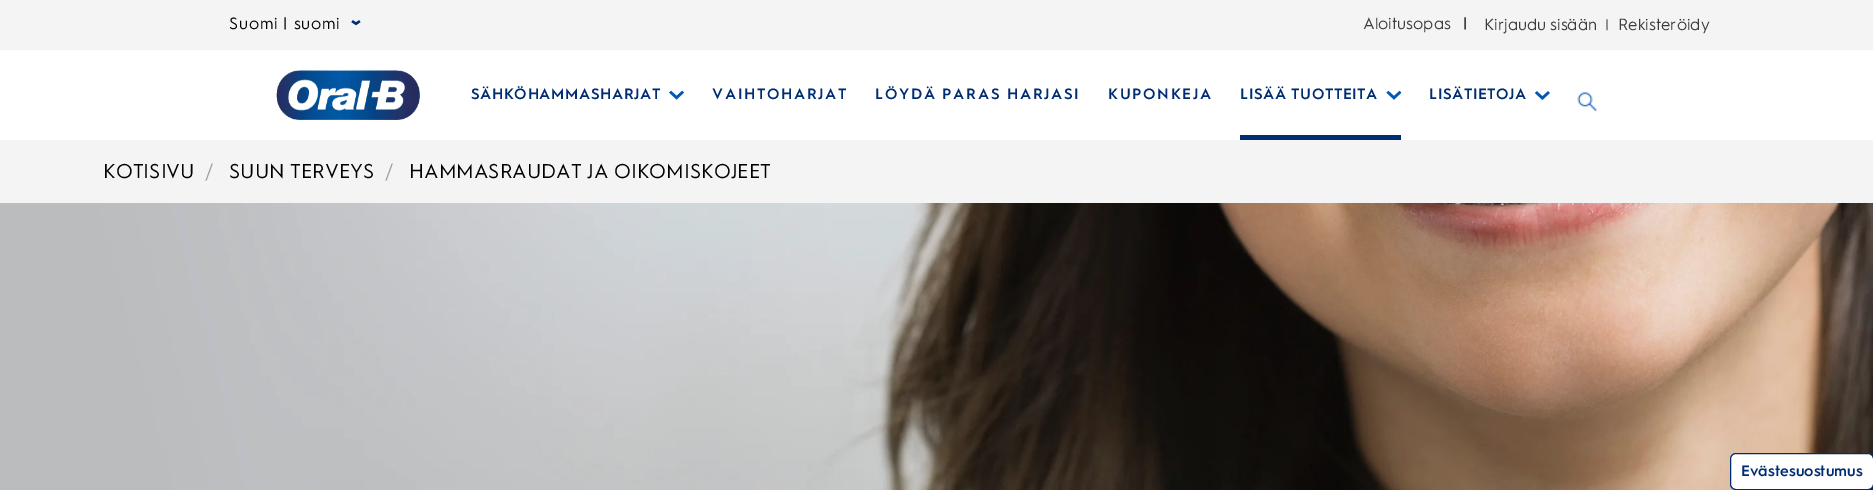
%!PS-Adobe-3.0
%%BoundingBox: 0 0 1873 490
%%LanguageLevel: 3
%%Pages: 1
%%EndComments
%%BeginProlog
/rrect { 5 dict begin { /r /h /w /y /x } { exch def } forall
  x r add y moveto x w add y 2 copy h add r arct x w add y h add x 1 index r arct
  x y h add x y r arct x y 2 copy exch w add exch r arct closepath end } def
/drawimage { 5 dict begin { /h /w /y /x /name } { exch def } forall
  gsave x y translate w h scale
  w h 8 [w 0 0 h 0 0] name (r) file false 3 colorimage grestore end } def
%%EndProlog
%%BeginSetup
<< /PageSize [1873 490] >> setpagedevice
%%EndSetup
%%Page: 1 1
0 490 translate 1 -1 scale
4 setmiterlimit
1 setgray
0 0 1873 490 rectfill
0.957 setgray
0 0 1873 50 rectfill
(images/1.raw) 351 20 10 6 drawimage
(images/2.raw) 276 70 144 50 drawimage
(images/3.raw) 669 90 15 10 drawimage
(images/4.raw) 1386 90 16 10 drawimage
0 0.176 0.447 setrgbcolor
1240 135 161 5 rectfill
(images/5.raw) 1534 91 16 9 drawimage
(images/6.raw) 1577 92 20 20 drawimage
0.957 setgray
0 140 1873 63 rectfill
(images/7.raw) 0 203 1873 287 drawimage
1 setgray
1730.5 453.5 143 36 5.5 rrect gsave fill grestore
0 0.176 0.447 setrgbcolor
stroke
/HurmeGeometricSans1-Regular [16.25 0 0 -16.25 0 0] selectfont
0 setgray
229 29 moveto 0.75 0 (Suomi | suomi) ashow
0.239 0.239 0.255 setrgbcolor
1363 29 moveto (Aloitusopas) show
0 setgray
1463 29 moveto (|) show
0.239 0.239 0.255 setrgbcolor
1484 30 moveto (Kirjaudu sisään) show
/HurmeGeometricSans1-Regular [15 0 0 -15 0 0] selectfont
1605 30 moveto (|) show
/HurmeGeometricSans1-Regular [16.25 0 0 -16.25 0 0] selectfont
1618 30 moveto (Rekisteröidy) show
/HurmeGeometricSans1-SemiBold [15 0 0 -15 0 0] selectfont
0 0.176 0.447 setrgbcolor
471 99 moveto 0.6 0 (SÄHKÖHAMMASHARJAT) ashow
712 99 moveto 1.7 0 (VAIHTOHARJAT) ashow
875 99 moveto 1.7 0 (LÖYDÄ PARAS HARJASI) ashow
1108 99 moveto 1.7 0 (KUPONKEJA) ashow
1240 99 moveto 0.6 0 (LISÄÄ TUOTTEITA) ashow
1429 99 moveto 0.6 0 (LISÄTIETOJA) ashow
/HurmeGeometricSans1-Regular [20 0 0 -20 0 0] selectfont
0 setgray
103 178 moveto (KOTISIVU) show
0.631 setgray
205 178 moveto (/) show
0 setgray
229 178 moveto (SUUN TERVEYS) show
0.631 setgray
385 178 moveto (/) show
0 setgray
409 178 moveto (HAMMASRAUDAT JA OIKOMISKOJEET) show
/HurmeGeometricSans1-SemiBold [15 0 0 -15 0 0] selectfont
0 0.176 0.447 setrgbcolor
1741 476 moveto (Evästesuostumus) show
showpage
%%EOF
